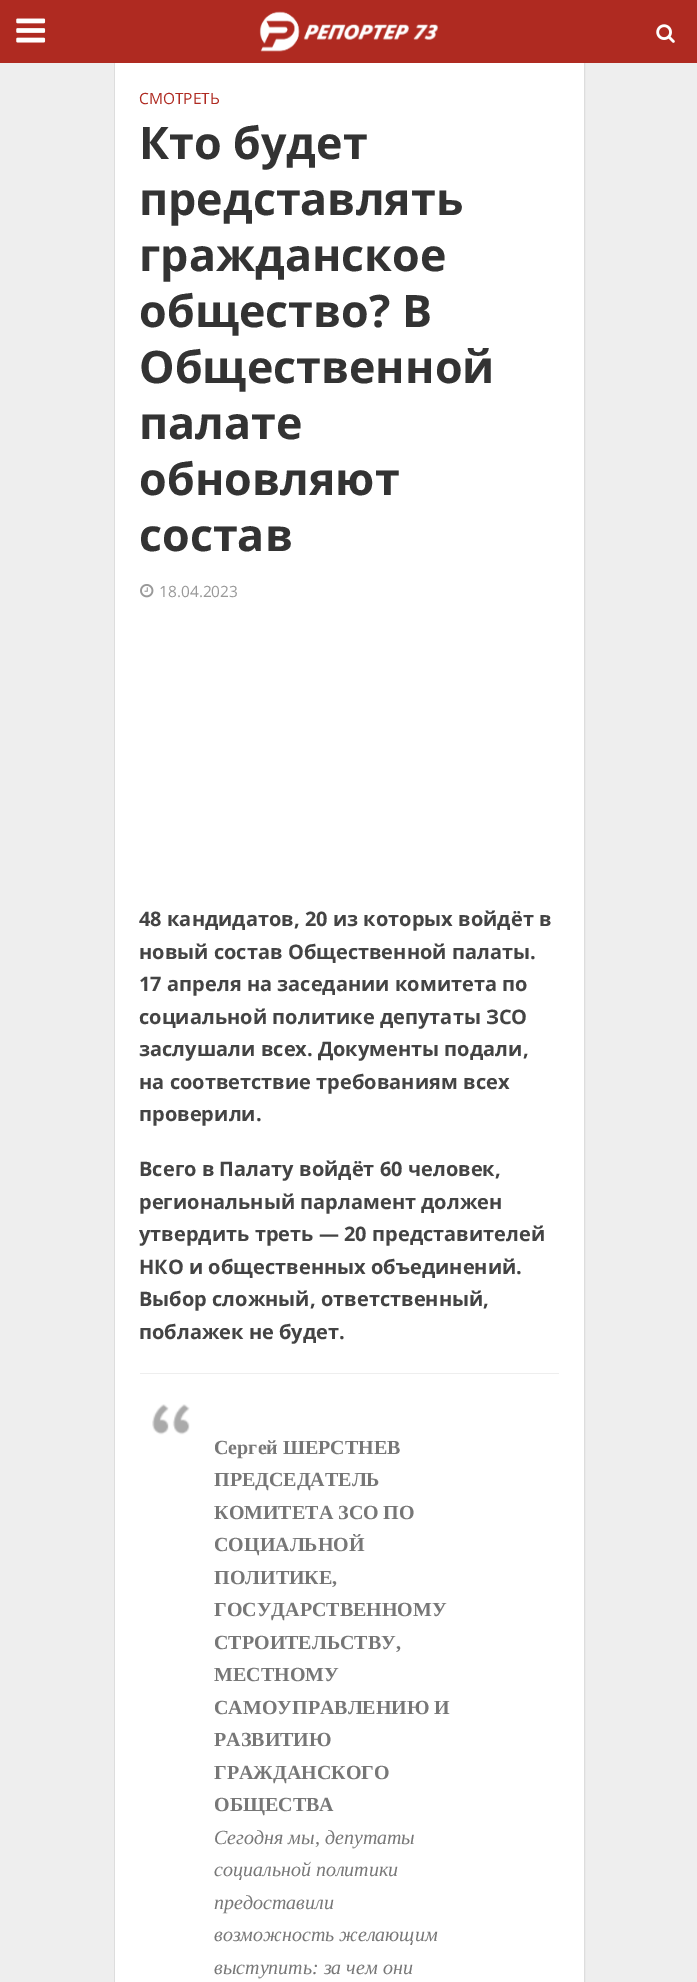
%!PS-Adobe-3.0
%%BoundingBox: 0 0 697 1982
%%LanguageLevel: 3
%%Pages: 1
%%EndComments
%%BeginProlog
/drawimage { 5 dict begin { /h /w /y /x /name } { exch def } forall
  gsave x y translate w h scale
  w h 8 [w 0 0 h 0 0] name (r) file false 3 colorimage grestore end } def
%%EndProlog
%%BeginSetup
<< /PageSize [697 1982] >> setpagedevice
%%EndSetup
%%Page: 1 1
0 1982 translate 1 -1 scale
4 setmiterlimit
0.933 setgray
0 0 697 1982 rectfill
0.867 setgray
114.5 61.5 470 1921 rectstroke
0.686 0.165 0.129 setrgbcolor
0 0 697 63 rectfill
(images/1.raw) 16 18 30 25 drawimage
(images/2.raw) 259 11 180 41 drawimage
(images/3.raw) 656 24 19 19 drawimage
1 setgray
115 63 469 1919 rectfill
(images/4.raw) 140 584 14 14 drawimage
0.933 setgray
140 1373 419 1 rectfill
(images/5.raw) 152 1404 38 31 drawimage
/OpenSans-Regular [15.5 0 0 -15.5 0 0] selectfont
0.686 0.165 0.129 setrgbcolor
139 104 moveto (СМОТРЕТЬ) show
/OpenSans-Bold [44.75 0 0 -44.75 0 0] selectfont
0.2 setgray
139 159 moveto (Кто будет) show
139 215 moveto (представлять) show
139 271 moveto (гражданское) show
139 327 moveto (общество? В) show
139 383 moveto (Общественной) show
139 439 moveto (палате) show
139 495 moveto (обновляют) show
139 551 moveto (состав) show
/OpenSans-Regular [15.5 0 0 -15.5 0 0] selectfont
0.6 setgray
159 597 moveto (18.04.2023) show
/OpenSans-Bold [20 0 0 -20 0 0] selectfont
0.267 setgray
139 926 moveto (48 кандидатов, 20 из которых войдёт в) show
139 959 moveto (новый состав Общественной палаты.) show
139 991 moveto (17 апреля на заседании комитета по) show
139 1024 moveto (социальной политике депутаты ЗСО) show
139 1056 moveto (заслушали всех. Документы подали,) show
139 1089 moveto (на соответствие требованиям всех) show
139 1121 moveto (проверили.) show
139 1176 moveto (Всего в Палату войдёт 60 человек,) show
139 1209 moveto (региональный парламент должен) show
139 1241 moveto (утвердить треть — 20 представителей) show
139 1274 moveto (НКО и общественных объединений.) show
139 1306 moveto (Выбор сложный, ответственный,) show
139 1339 moveto (поблажек не будет.) show
/LiberationSerif-Bold [20 0 0 -20 0 0] selectfont
0.467 setgray
214 1454 moveto (Сергей ШЕРСТНЕВ) show
214 1486 moveto (ПРЕДСЕДАТЕЛЬ) show
214 1519 moveto (КОМИТЕТА ЗСО ПО) show
214 1551 moveto (СОЦИАЛЬНОЙ) show
214 1584 moveto (ПОЛИТИКЕ,) show
214 1616 moveto (ГОСУДАРСТВЕННОМУ) show
214 1649 moveto (СТРОИТЕЛЬСТВУ,) show
214 1681 moveto (МЕСТНОМУ) show
214 1714 moveto (САМОУПРАВЛЕНИЮ И) show
214 1746 moveto (РАЗВИТИЮ) show
214 1779 moveto (ГРАЖДАНСКОГО) show
214 1811 moveto (ОБЩЕСТВА) show
/LiberationSerif-Italic [20 0 0 -20 0 0] selectfont
214 1844 moveto (Сегодня мы, депутаты) show
214 1876 moveto (социальной политики) show
214 1909 moveto (предоставили) show
214 1941 moveto (возможность желающим) show
214 1974 moveto (выступить: за чем они) show
showpage
%%EOF
